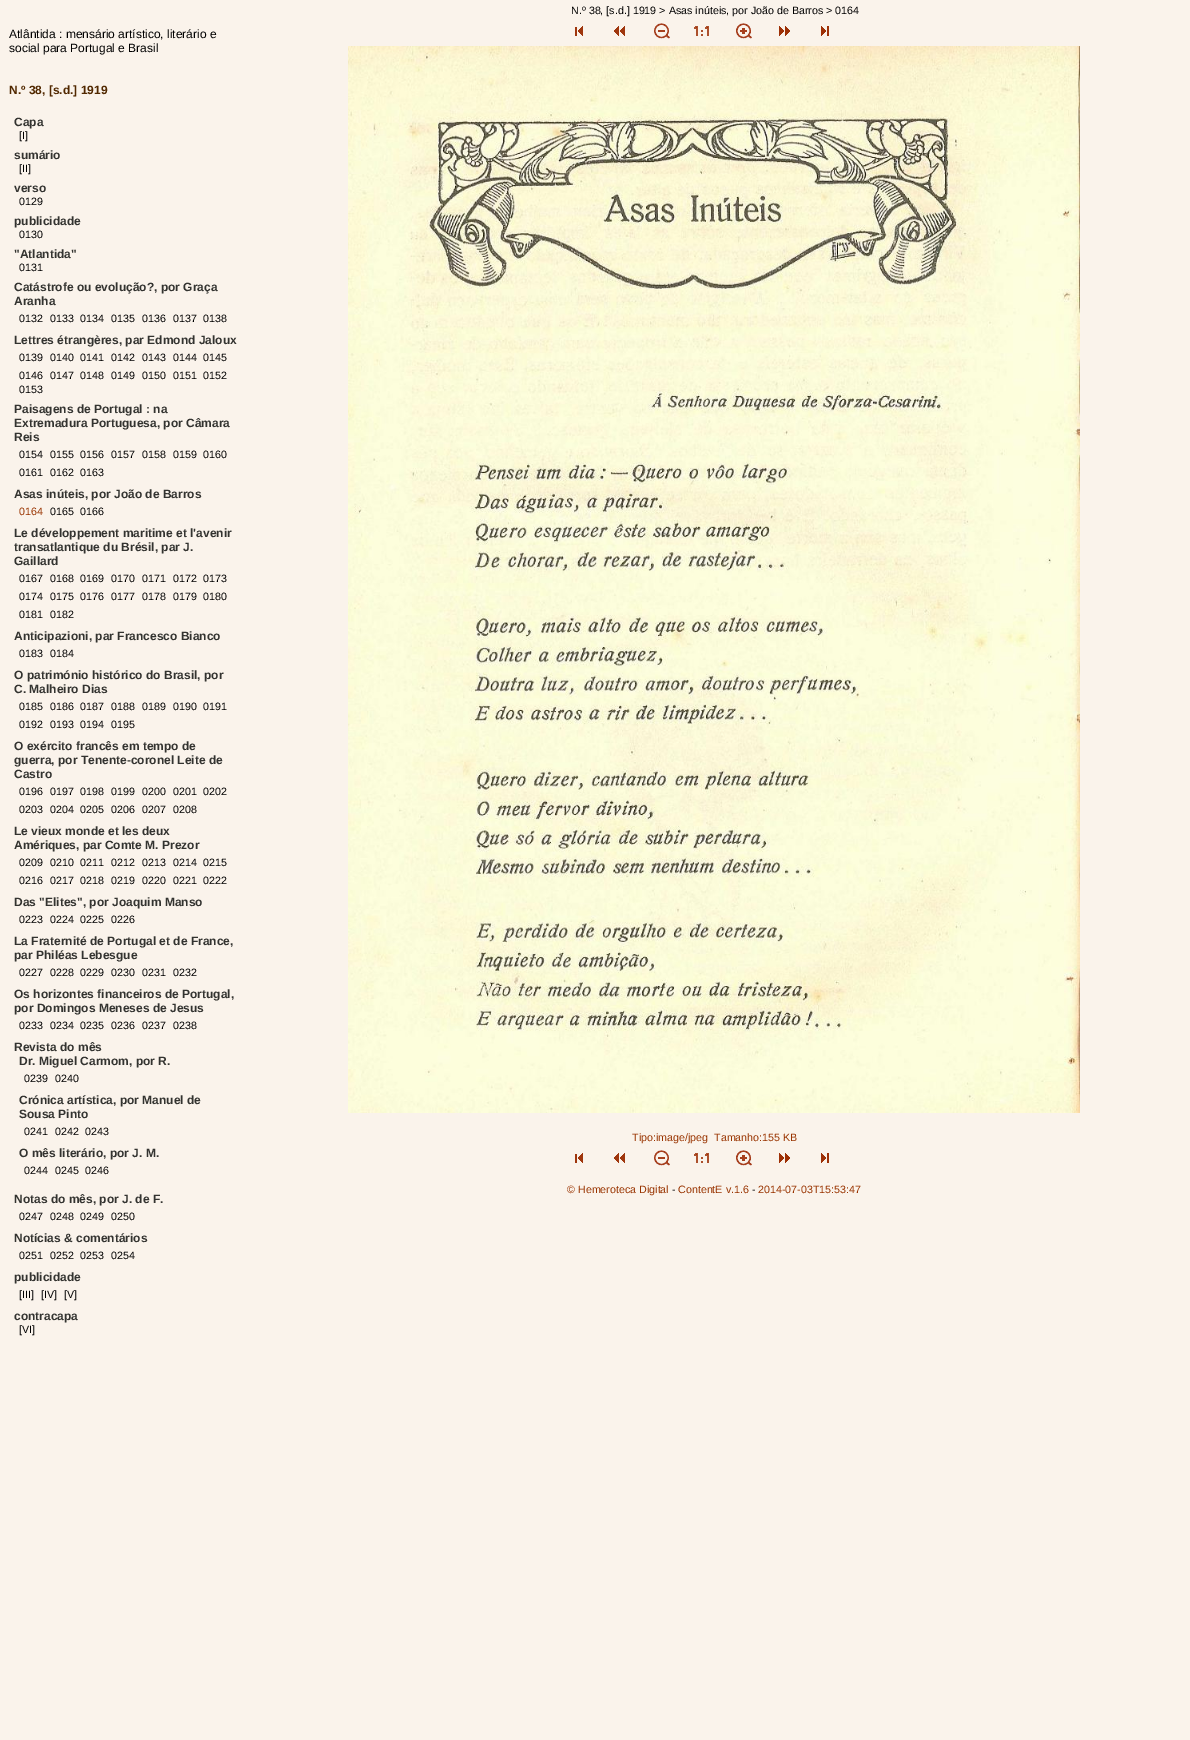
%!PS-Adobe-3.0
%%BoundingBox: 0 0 1190 1740
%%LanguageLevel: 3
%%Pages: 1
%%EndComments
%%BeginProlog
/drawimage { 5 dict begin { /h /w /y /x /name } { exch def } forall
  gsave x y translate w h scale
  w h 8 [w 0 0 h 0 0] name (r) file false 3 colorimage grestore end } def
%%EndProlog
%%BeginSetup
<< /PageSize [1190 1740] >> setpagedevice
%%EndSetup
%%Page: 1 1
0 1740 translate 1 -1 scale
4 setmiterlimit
0.98 0.953 0.922 setrgbcolor
0 0 1190 1740 rectfill
(images/1.raw) 575 26 8 10 drawimage
(images/2.raw) 614 26 11 10 drawimage
(images/3.raw) 654 23 16 16 drawimage
(images/4.raw) 694 26 15 10 drawimage
(images/5.raw) 736 23 16 16 drawimage
(images/6.raw) 779 26 11 10 drawimage
(images/7.raw) 821 26 8 10 drawimage
(images/8.raw) 348 46 732 1067 drawimage
(images/1.raw) 575 1153 8 10 drawimage
(images/2.raw) 614 1153 11 10 drawimage
(images/3.raw) 654 1150 16 16 drawimage
(images/4.raw) 694 1153 15 10 drawimage
(images/5.raw) 736 1150 16 16 drawimage
(images/6.raw) 779 1153 11 10 drawimage
(images/7.raw) 821 1153 8 10 drawimage
/LiberationSans-Regular [12 0 0 -12 0 0] selectfont
0 setgray
9 38 moveto (Atlântida : mensário artístico, literário e) show
9 52 moveto (social para Portugal e Brasil) show
/LiberationSans-Bold [12 0 0 -12 0 0] selectfont
0.318 0.157 0 setrgbcolor
9 94 moveto (N.º 38, [s.d.] 1919) show
0.2 0.2 0.188 setrgbcolor
14 126 moveto (Capa) show
/LiberationSans-Regular [10.7 0 0 -10.7 0 0] selectfont
0 setgray
19 139 moveto ([I]) show
/LiberationSans-Bold [12 0 0 -12 0 0] selectfont
0.2 0.2 0.188 setrgbcolor
14 159 moveto (sumário) show
/LiberationSans-Regular [10.7 0 0 -10.7 0 0] selectfont
0 setgray
19 172 moveto ([II]) show
/LiberationSans-Bold [12 0 0 -12 0 0] selectfont
0.2 0.2 0.188 setrgbcolor
14 192 moveto (verso) show
/LiberationSans-Regular [10.7 0 0 -10.7 0 0] selectfont
0 setgray
19 205 moveto (0129) show
/LiberationSans-Bold [12 0 0 -12 0 0] selectfont
0.2 0.2 0.188 setrgbcolor
14 225 moveto (publicidade) show
/LiberationSans-Regular [10.7 0 0 -10.7 0 0] selectfont
0 setgray
19 238 moveto (0130) show
/LiberationSans-Bold [12 0 0 -12 0 0] selectfont
0.2 0.2 0.188 setrgbcolor
14 258 moveto ("Atlantida") show
/LiberationSans-Regular [10.7 0 0 -10.7 0 0] selectfont
0 setgray
19 271 moveto (0131) show
/LiberationSans-Bold [12 0 0 -12 0 0] selectfont
0.2 0.2 0.188 setrgbcolor
14 291 moveto (Catástrofe ou evolução?, por Graça) show
14 305 moveto (Aranha) show
/LiberationSans-Regular [10.7 0 0 -10.7 0 0] selectfont
0 setgray
19 322 moveto (0132) show
50 322 moveto (0133) show
80 322 moveto (0134) show
111 322 moveto (0135) show
142 322 moveto (0136) show
173 322 moveto (0137) show
203 322 moveto (0138) show
/LiberationSans-Bold [12 0 0 -12 0 0] selectfont
0.2 0.2 0.188 setrgbcolor
14 344 moveto (Lettres étrangères, par Edmond Jaloux) show
/LiberationSans-Regular [10.7 0 0 -10.7 0 0] selectfont
0 setgray
19 361 moveto (0139) show
50 361 moveto (0140) show
80 361 moveto (0141) show
111 361 moveto (0142) show
142 361 moveto (0143) show
173 361 moveto (0144) show
203 361 moveto (0145) show
19 379 moveto (0146) show
50 379 moveto (0147) show
80 379 moveto (0148) show
111 379 moveto (0149) show
142 379 moveto (0150) show
173 379 moveto (0151) show
203 379 moveto (0152) show
19 393 moveto (0153) show
/LiberationSans-Bold [12 0 0 -12 0 0] selectfont
0.2 0.2 0.188 setrgbcolor
14 413 moveto (Paisagens de Portugal : na) show
14 427 moveto (Extremadura Portuguesa, por Câmara) show
14 441 moveto (Reis) show
/LiberationSans-Regular [10.7 0 0 -10.7 0 0] selectfont
0 setgray
19 458 moveto (0154) show
50 458 moveto (0155) show
80 458 moveto (0156) show
111 458 moveto (0157) show
142 458 moveto (0158) show
173 458 moveto (0159) show
203 458 moveto (0160) show
19 476 moveto (0161) show
50 476 moveto (0162) show
80 476 moveto (0163) show
/LiberationSans-Bold [12 0 0 -12 0 0] selectfont
0.2 0.2 0.188 setrgbcolor
14 498 moveto (Asas inúteis, por João de Barros) show
/LiberationSans-Regular [10.7 0 0 -10.7 0 0] selectfont
0.6 0.2 0 setrgbcolor
19 515 moveto (0164) show
0 setgray
50 515 moveto (0165) show
80 515 moveto (0166) show
/LiberationSans-Bold [12 0 0 -12 0 0] selectfont
0.2 0.2 0.188 setrgbcolor
14 537 moveto (Le développement maritime et l'avenir) show
14 551 moveto (transatlantique du Brésil, par J.) show
14 565 moveto (Gaillard) show
/LiberationSans-Regular [10.7 0 0 -10.7 0 0] selectfont
0 setgray
19 582 moveto (0167) show
50 582 moveto (0168) show
80 582 moveto (0169) show
111 582 moveto (0170) show
142 582 moveto (0171) show
173 582 moveto (0172) show
203 582 moveto (0173) show
19 600 moveto (0174) show
50 600 moveto (0175) show
80 600 moveto (0176) show
111 600 moveto (0177) show
142 600 moveto (0178) show
173 600 moveto (0179) show
203 600 moveto (0180) show
19 618 moveto (0181) show
50 618 moveto (0182) show
/LiberationSans-Bold [12 0 0 -12 0 0] selectfont
0.2 0.2 0.188 setrgbcolor
14 640 moveto (Anticipazioni, par Francesco Bianco) show
/LiberationSans-Regular [10.7 0 0 -10.7 0 0] selectfont
0 setgray
19 657 moveto (0183) show
50 657 moveto (0184) show
/LiberationSans-Bold [12 0 0 -12 0 0] selectfont
0.2 0.2 0.188 setrgbcolor
14 679 moveto (O património histórico do Brasil, por) show
14 693 moveto (C. Malheiro Dias) show
/LiberationSans-Regular [10.7 0 0 -10.7 0 0] selectfont
0 setgray
19 710 moveto (0185) show
50 710 moveto (0186) show
80 710 moveto (0187) show
111 710 moveto (0188) show
142 710 moveto (0189) show
173 710 moveto (0190) show
203 710 moveto (0191) show
19 728 moveto (0192) show
50 728 moveto (0193) show
80 728 moveto (0194) show
111 728 moveto (0195) show
/LiberationSans-Bold [12 0 0 -12 0 0] selectfont
0.2 0.2 0.188 setrgbcolor
14 750 moveto (O exército francês em tempo de) show
14 764 moveto (guerra, por Tenente-coronel Leite de) show
14 778 moveto (Castro) show
/LiberationSans-Regular [10.7 0 0 -10.7 0 0] selectfont
0 setgray
19 795 moveto (0196) show
50 795 moveto (0197) show
80 795 moveto (0198) show
111 795 moveto (0199) show
142 795 moveto (0200) show
173 795 moveto (0201) show
203 795 moveto (0202) show
19 813 moveto (0203) show
50 813 moveto (0204) show
80 813 moveto (0205) show
111 813 moveto (0206) show
142 813 moveto (0207) show
173 813 moveto (0208) show
/LiberationSans-Bold [12 0 0 -12 0 0] selectfont
0.2 0.2 0.188 setrgbcolor
14 835 moveto (Le vieux monde et les deux) show
14 849 moveto (Amériques, par Comte M. Prezor) show
/LiberationSans-Regular [10.7 0 0 -10.7 0 0] selectfont
0 setgray
19 866 moveto (0209) show
50 866 moveto (0210) show
80 866 moveto (0211) show
111 866 moveto (0212) show
142 866 moveto (0213) show
173 866 moveto (0214) show
203 866 moveto (0215) show
19 884 moveto (0216) show
50 884 moveto (0217) show
80 884 moveto (0218) show
111 884 moveto (0219) show
142 884 moveto (0220) show
173 884 moveto (0221) show
203 884 moveto (0222) show
/LiberationSans-Bold [12 0 0 -12 0 0] selectfont
0.2 0.2 0.188 setrgbcolor
14 906 moveto (Das "Elites", por Joaquim Manso) show
/LiberationSans-Regular [10.7 0 0 -10.7 0 0] selectfont
0 setgray
19 923 moveto (0223) show
50 923 moveto (0224) show
80 923 moveto (0225) show
111 923 moveto (0226) show
/LiberationSans-Bold [12 0 0 -12 0 0] selectfont
0.2 0.2 0.188 setrgbcolor
14 945 moveto (La Fraternité de Portugal et de France,) show
14 959 moveto (par Philéas Lebesgue) show
/LiberationSans-Regular [10.7 0 0 -10.7 0 0] selectfont
0 setgray
19 976 moveto (0227) show
50 976 moveto (0228) show
80 976 moveto (0229) show
111 976 moveto (0230) show
142 976 moveto (0231) show
173 976 moveto (0232) show
/LiberationSans-Bold [12 0 0 -12 0 0] selectfont
0.2 0.2 0.188 setrgbcolor
14 998 moveto (Os horizontes financeiros de Portugal,) show
14 1012 moveto (por Domingos Meneses de Jesus) show
/LiberationSans-Regular [10.7 0 0 -10.7 0 0] selectfont
0 setgray
19 1029 moveto (0233) show
50 1029 moveto (0234) show
80 1029 moveto (0235) show
111 1029 moveto (0236) show
142 1029 moveto (0237) show
173 1029 moveto (0238) show
/LiberationSans-Bold [12 0 0 -12 0 0] selectfont
0.2 0.2 0.188 setrgbcolor
14 1051 moveto (Revista do mês) show
19 1065 moveto (Dr. Miguel Carmom, por R.) show
/LiberationSans-Regular [10.7 0 0 -10.7 0 0] selectfont
0 setgray
24 1082 moveto (0239) show
55 1082 moveto (0240) show
/LiberationSans-Bold [12 0 0 -12 0 0] selectfont
0.2 0.2 0.188 setrgbcolor
19 1104 moveto (Crónica artística, por Manuel de) show
19 1118 moveto (Sousa Pinto) show
/LiberationSans-Regular [10.7 0 0 -10.7 0 0] selectfont
0 setgray
24 1135 moveto (0241) show
55 1135 moveto (0242) show
85 1135 moveto (0243) show
/LiberationSans-Bold [12 0 0 -12 0 0] selectfont
0.2 0.2 0.188 setrgbcolor
19 1157 moveto (O mês literário, por J. M.) show
/LiberationSans-Regular [10.7 0 0 -10.7 0 0] selectfont
0 setgray
24 1174 moveto (0244) show
55 1174 moveto (0245) show
85 1174 moveto (0246) show
/LiberationSans-Bold [12 0 0 -12 0 0] selectfont
0.2 0.2 0.188 setrgbcolor
14 1203 moveto (Notas do mês, por J. de F.) show
/LiberationSans-Regular [10.7 0 0 -10.7 0 0] selectfont
0 setgray
19 1220 moveto (0247) show
50 1220 moveto (0248) show
80 1220 moveto (0249) show
111 1220 moveto (0250) show
/LiberationSans-Bold [12 0 0 -12 0 0] selectfont
0.2 0.2 0.188 setrgbcolor
14 1242 moveto (Notícias & comentários) show
/LiberationSans-Regular [10.7 0 0 -10.7 0 0] selectfont
0 setgray
19 1259 moveto (0251) show
50 1259 moveto (0252) show
80 1259 moveto (0253) show
111 1259 moveto (0254) show
/LiberationSans-Bold [12 0 0 -12 0 0] selectfont
0.2 0.2 0.188 setrgbcolor
14 1281 moveto (publicidade) show
/LiberationSans-Regular [10.7 0 0 -10.7 0 0] selectfont
0 setgray
19 1298 moveto ([III]) show
41 1298 moveto ([IV]) show
64 1298 moveto ([V]) show
/LiberationSans-Bold [12 0 0 -12 0 0] selectfont
0.2 0.2 0.188 setrgbcolor
14 1320 moveto (contracapa) show
/LiberationSans-Regular [10.7 0 0 -10.7 0 0] selectfont
0 setgray
19 1333 moveto ([VI]) show
571 14 moveto (N.º 38, [s.d.] 1919 > Asas inúteis, por João de Barros > 0164) show
0.6 0.2 0 setrgbcolor
632 1141 moveto (Tipo:image/jpeg  Tamanho:155 KB) show
567 1193 moveto (© Hemeroteca Digital) show
0 setgray
672 1193 moveto (-) show
0.6 0.2 0 setrgbcolor
678 1193 moveto (ContentE v.1.6) show
0 setgray
752 1193 moveto (-) show
0.6 0.2 0 setrgbcolor
758 1193 moveto (2014-07-03T15:53:47) show
showpage
%%EOF
